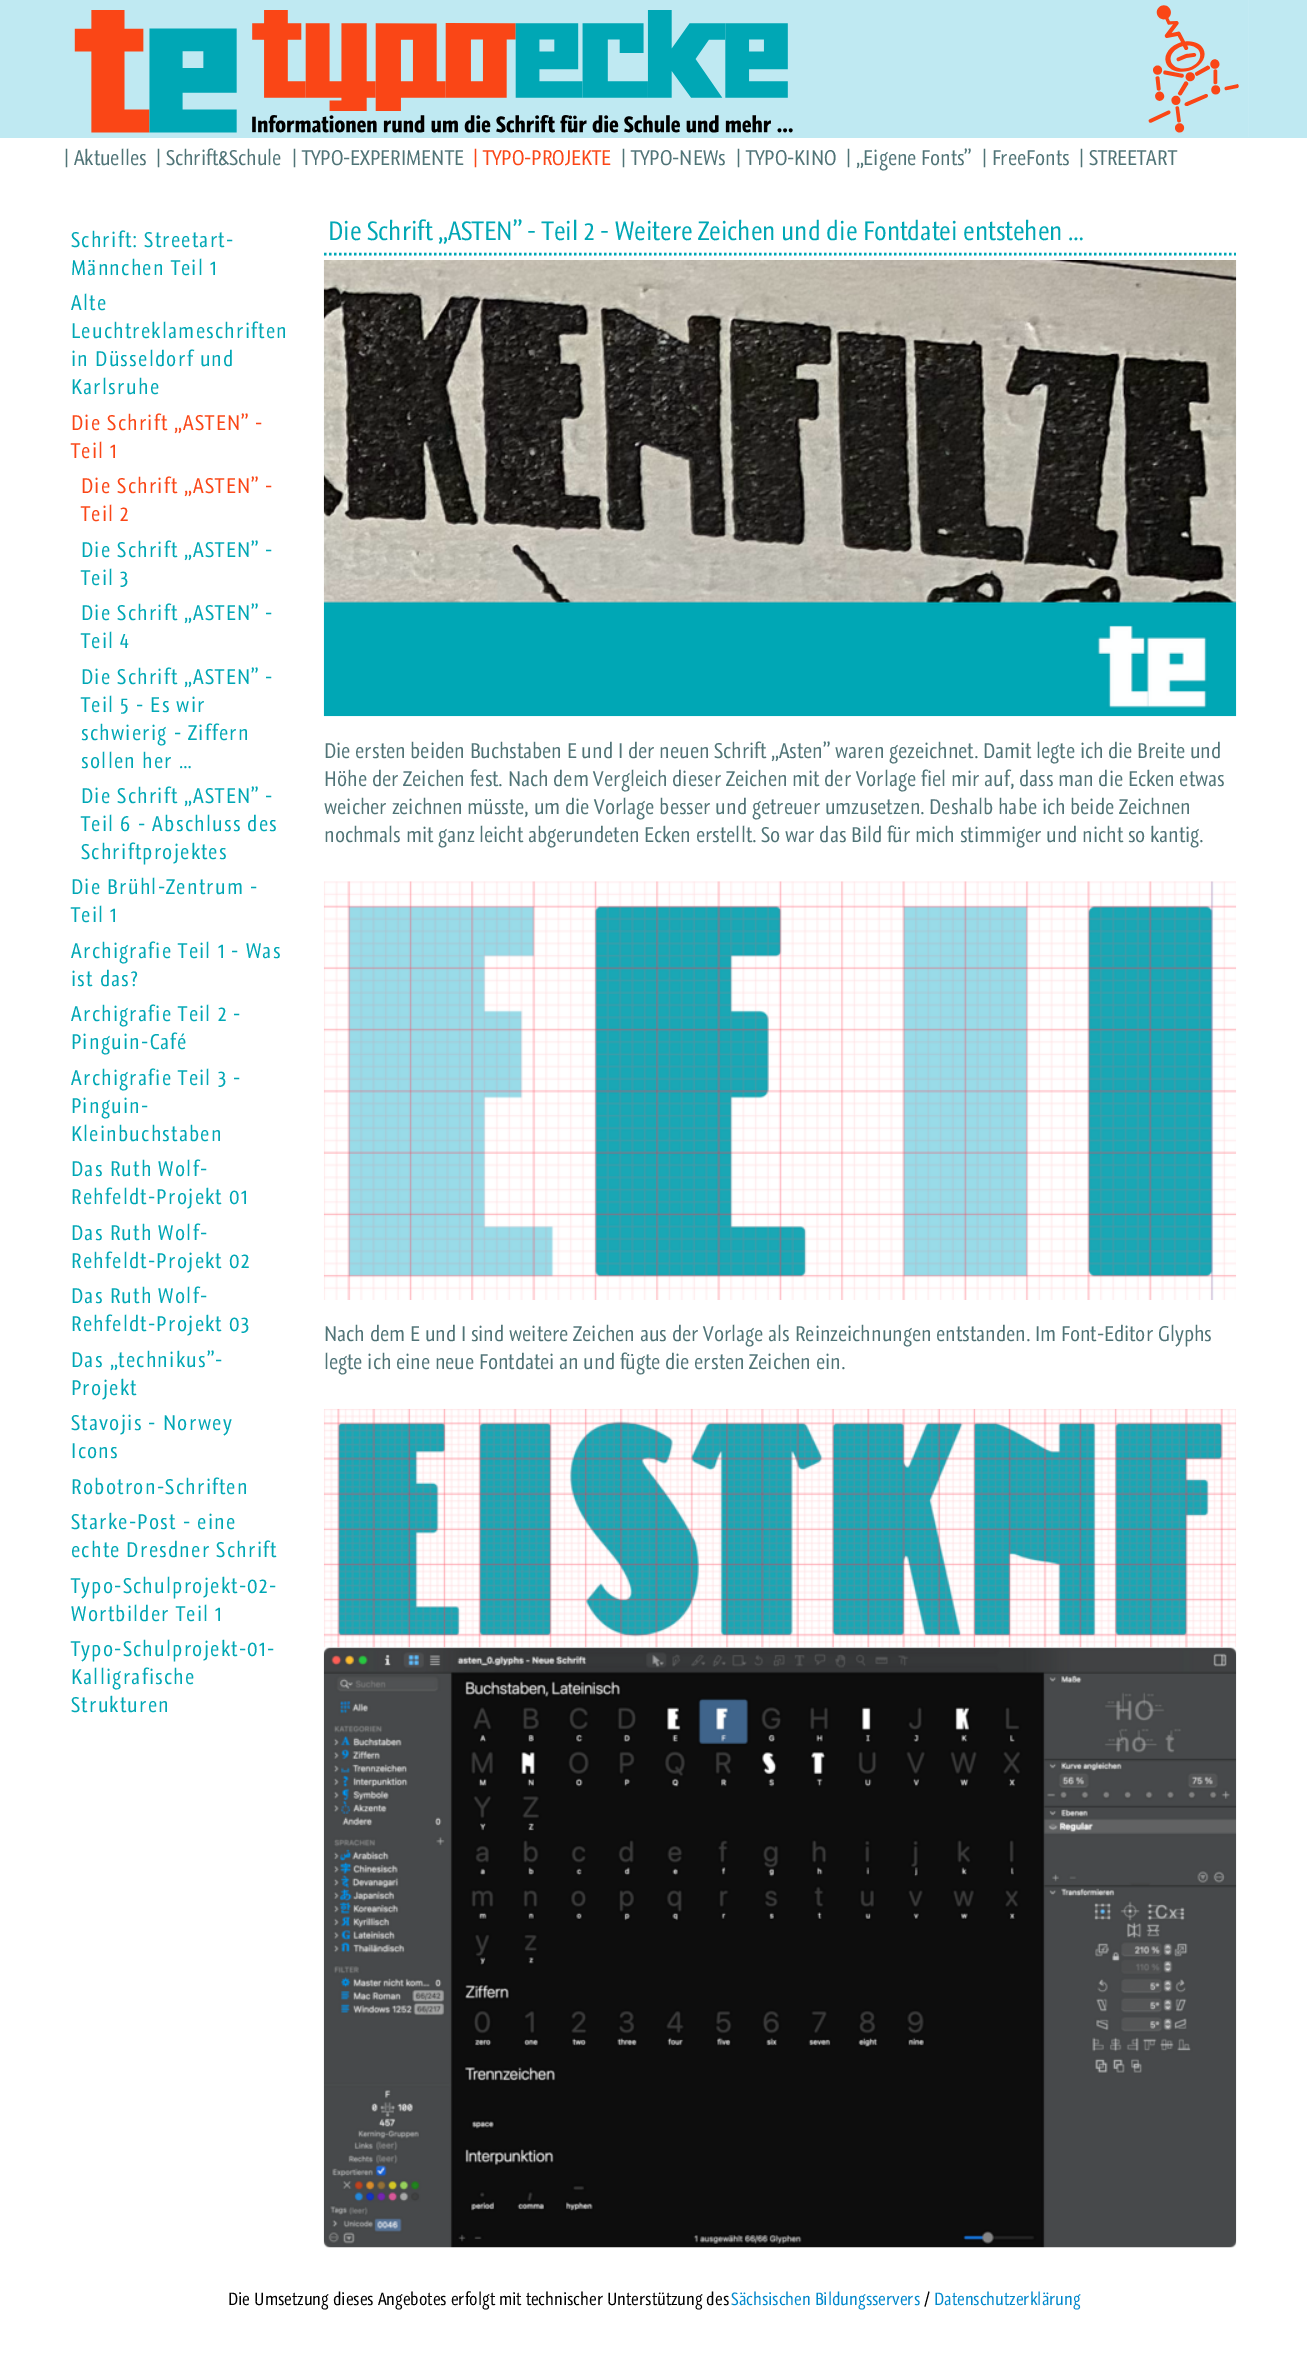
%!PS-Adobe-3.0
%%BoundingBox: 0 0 1307 2355
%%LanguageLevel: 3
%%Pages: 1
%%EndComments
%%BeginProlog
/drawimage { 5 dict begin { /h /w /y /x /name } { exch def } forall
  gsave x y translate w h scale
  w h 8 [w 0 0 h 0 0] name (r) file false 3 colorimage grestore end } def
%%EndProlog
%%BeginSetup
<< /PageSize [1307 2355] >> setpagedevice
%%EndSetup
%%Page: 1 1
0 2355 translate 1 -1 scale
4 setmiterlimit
1 setgray
0 0 1307 2355 rectfill
0.749 0.914 0.949 setrgbcolor
0 0 1307 138 rectfill
(images/1.raw) 74 0 1175 137 drawimage
0 0.655 0.71 setrgbcolor
2.5 setlinewidth
[2.5 2.5] 0 setdash
newpath 324 254 moveto 1236 254 lineto stroke
(images/2.raw) 323 260 914 457 drawimage
(images/3.raw) 323 881 914 419 drawimage
(images/4.raw) 323 1408 914 240 drawimage
(images/5.raw) 323 1647 914 601 drawimage
/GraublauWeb-Regular [20 0 0 -20 0 0] selectfont
0.314 0.455 0.467 setrgbcolor
64 165 moveto (| Aktuelles) show
156 165 moveto (| Schrift&Schule) show
292 165 moveto (| TYPO-EXPERIMENTE) show
0.98 0.275 0.086 setrgbcolor
473 165 moveto (| TYPO-PROJEKTE) show
0.314 0.455 0.467 setrgbcolor
621 165 moveto (| TYPO-NEWs) show
736 165 moveto (| TYPO-KINO) show
846 165 moveto (| „Eigene Fonts”) show
982 165 moveto (| FreeFonts) show
1079 165 moveto (| STREETART) show
0 0.655 0.71 setrgbcolor
71 247 moveto 1.25 0 (Schrift: Streetart-) ashow
71 275 moveto 1.25 0 (Männchen Teil 1) ashow
71 310 moveto 1.25 0 (Alte) ashow
71 338 moveto 1.25 0 (Leuchtreklameschriften) ashow
71 366 moveto 1.25 0 (in Düsseldorf und) ashow
71 394 moveto 1.25 0 (Karlsruhe) ashow
0.98 0.275 0.086 setrgbcolor
71 430 moveto 1.25 0 (Die Schrift „ASTEN” -) ashow
71 458 moveto 1.25 0 (Teil 1) ashow
81 493 moveto 1.25 0 (Die Schrift „ASTEN” -) ashow
81 521 moveto 1.25 0 (Teil 2) ashow
0 0.655 0.71 setrgbcolor
81 557 moveto 1.25 0 (Die Schrift „ASTEN” -) ashow
81 585 moveto 1.25 0 (Teil 3) ashow
81 620 moveto 1.25 0 (Die Schrift „ASTEN” -) ashow
81 648 moveto 1.25 0 (Teil 4) ashow
81 684 moveto 1.25 0 (Die Schrift „ASTEN” -) ashow
81 712 moveto 1.25 0 (Teil 5 - Es wir) ashow
81 740 moveto 1.25 0 (schwierig - Ziffern) ashow
81 768 moveto 1.25 0 (sollen her …) ashow
81 803 moveto 1.25 0 (Die Schrift „ASTEN” -) ashow
81 831 moveto 1.25 0 (Teil 6 - Abschluss des) ashow
81 859 moveto 1.25 0 (Schriftprojektes) ashow
71 894 moveto 1.25 0 (Die Brühl-Zentrum -) ashow
71 922 moveto 1.25 0 (Teil 1) ashow
71 958 moveto 1.25 0 (Archigrafie Teil 1 - Was) ashow
71 986 moveto 1.25 0 (ist das?) ashow
71 1021 moveto 1.25 0 (Archigrafie Teil 2 -) ashow
71 1049 moveto 1.25 0 (Pinguin-Café) ashow
71 1085 moveto 1.25 0 (Archigrafie Teil 3 -) ashow
71 1113 moveto 1.25 0 (Pinguin-) ashow
71 1141 moveto 1.25 0 (Kleinbuchstaben) ashow
71 1176 moveto 1.25 0 (Das Ruth Wolf-) ashow
71 1204 moveto 1.25 0 (Rehfeldt-Projekt 01) ashow
71 1240 moveto 1.25 0 (Das Ruth Wolf-) ashow
71 1268 moveto 1.25 0 (Rehfeldt-Projekt 02) ashow
71 1303 moveto 1.25 0 (Das Ruth Wolf-) ashow
71 1331 moveto 1.25 0 (Rehfeldt-Projekt 03) ashow
71 1367 moveto 1.25 0 (Das „technikus”-) ashow
71 1395 moveto 1.25 0 (Projekt) ashow
71 1430 moveto 1.25 0 (Stavojis - Norwey) ashow
71 1458 moveto 1.25 0 (Icons) ashow
71 1494 moveto 1.25 0 (Robotron-Schriften) ashow
71 1529 moveto 1.25 0 (Starke-Post - eine) ashow
71 1557 moveto 1.25 0 (echte Dresdner Schrift) ashow
71 1593 moveto 1.25 0 (Typo-Schulprojekt-02-) ashow
71 1621 moveto 1.25 0 (Wortbilder Teil 1) ashow
71 1656 moveto 1.25 0 (Typo-Schulprojekt-01-) ashow
71 1684 moveto 1.25 0 (Kalligrafische) ashow
71 1712 moveto 1.25 0 (Strukturen) ashow
/GraublauWeb-Regular [25 0 0 -25 0 0] selectfont
328 240 moveto (Die Schrift „ASTEN” - Teil 2 - Weitere Zeichen und die Fontdatei entstehen …) show
/GraublauWeb-Regular [20 0 0 -20 0 0] selectfont
0.314 0.455 0.467 setrgbcolor
324 758 moveto (Die ersten beiden Buchstaben E und I der neuen Schrift „Asten” waren gezeichnet. Damit legte ich die Breite und) show
324 786 moveto (Höhe der Zeichen fest. Nach dem Vergleich dieser Zeichen mit der Vorlage fiel mir auf, dass man die Ecken etwas) show
324 814 moveto (weicher zeichnen müsste, um die Vorlage besser und getreuer umzusetzen. Deshalb habe ich beide Zeichnen) show
324 842 moveto (nochmals mit ganz leicht abgerundeten Ecken erstellt. So war das Bild für mich stimmiger und nicht so kantig.) show
324 1341 moveto (Nach dem E und I sind weitere Zeichen aus der Vorlage als Reinzeichnungen entstanden. Im Font-Editor Glyphs) show
324 1369 moveto (legte ich eine neue Fontdatei an und fügte die ersten Zeichen ein.) show
/GraublauWeb-Regular [16.7 0 0 -16.7 0 0] selectfont
0 setgray
228 2305 moveto (Die Umsetzung dieses Angebotes erfolgt mit technischer Unterstützung des) show
0 0.533 0.8 setrgbcolor
731 2305 moveto (Sächsischen Bildungsservers) show
0 setgray
924 2305 moveto (/) show
0 0.533 0.8 setrgbcolor
934 2305 moveto (Datenschutzerklärung) show
showpage
%%EOF
